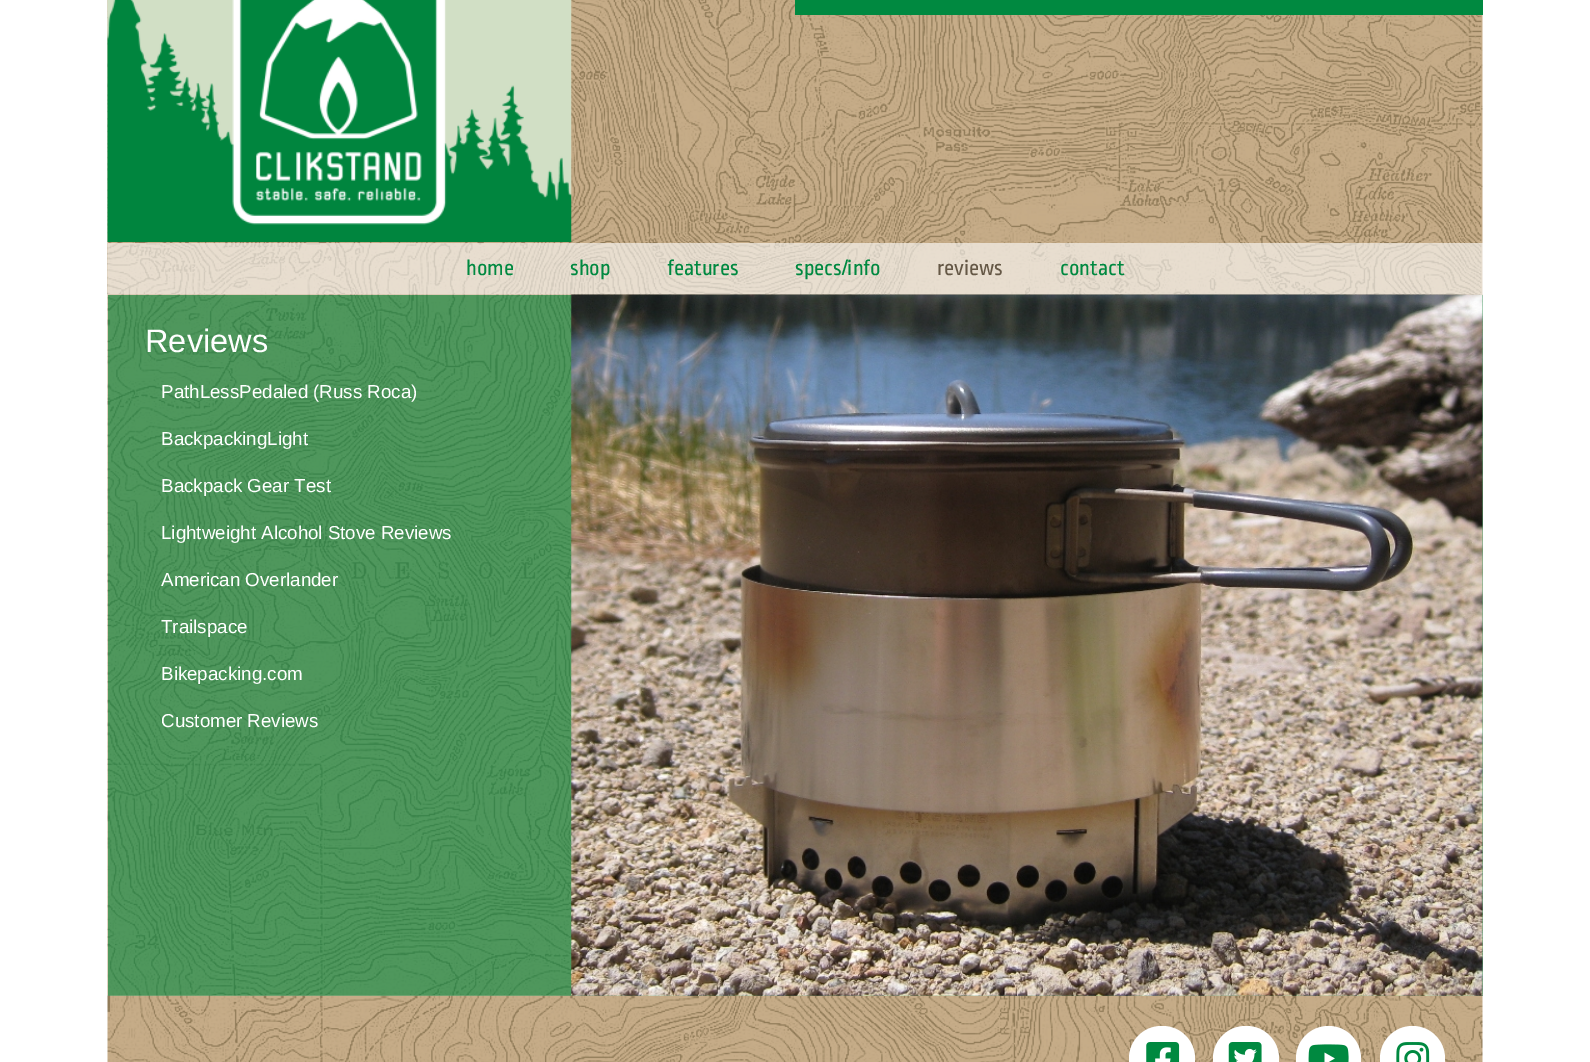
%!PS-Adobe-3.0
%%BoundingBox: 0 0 1590 1062
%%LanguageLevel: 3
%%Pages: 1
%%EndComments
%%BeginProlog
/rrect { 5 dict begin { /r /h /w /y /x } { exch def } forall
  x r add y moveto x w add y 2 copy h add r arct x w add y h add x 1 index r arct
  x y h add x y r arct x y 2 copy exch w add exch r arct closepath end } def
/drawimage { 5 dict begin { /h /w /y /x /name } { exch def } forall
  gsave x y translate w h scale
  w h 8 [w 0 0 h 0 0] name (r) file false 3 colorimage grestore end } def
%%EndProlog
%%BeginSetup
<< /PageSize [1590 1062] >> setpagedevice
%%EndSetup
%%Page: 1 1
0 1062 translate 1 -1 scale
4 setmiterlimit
1 setgray
0 0 1590 1062 rectfill
0.4 0.722 0.549 setrgbcolor
108 295 1375 701 rectfill
(images/1.raw) 107 0 1376 242 drawimage
(images/2.raw) 107 0 465 242 drawimage
0 0.537 0.251 setrgbcolor
795 0 688 15 rectfill
(images/3.raw) 107 242 1376 53 drawimage
(images/4.raw) 107 294 1376 702 drawimage
(images/6.raw) 107 995 1376 67 drawimage
(images/5.raw) 571 294 912 702 drawimage
1 setgray
1129 1026 66 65 32.5 rrect fill
(images/7.raw) 1146 1042 34 20 drawimage
1213 1026 66 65 32.5 rrect fill
(images/8.raw) 1228 1042 34 20 drawimage
newpath 1328.5 1058.5 32.5 0 360 arc closepath fill
(images/9.raw) 1308 1044 41 18 drawimage
newpath 1412.5 1058.5 32.5 0 360 arc closepath fill
(images/10.raw) 1396 1042 34 20 drawimage
/RopaSans-Regular [22.5 0 0 -22.5 0 0] selectfont
0 0.537 0.251 setrgbcolor
466 275 moveto (home) show
570 275 moveto (shop) show
667 275 moveto (features) show
795 275 moveto (specs/info) show
0.396 0.345 0.275 setrgbcolor
937 275 moveto (reviews) show
0 0.537 0.251 setrgbcolor
1060 275 moveto (contact) show
/LiberationSans-Regular [32.5 0 0 -32.5 0 0] selectfont
1 setgray
145 352 moveto (Reviews) show
/LiberationSans-Regular [18.75 0 0 -18.75 0 0] selectfont
161 398 moveto (PathLessPedaled \(Russ Roca\)) show
161 445 moveto (BackpackingLight) show
161 492 moveto (Backpack Gear Test) show
161 539 moveto (Lightweight Alcohol Stove Reviews) show
161 586 moveto (American Overlander) show
161 633 moveto (Trailspace) show
161 680 moveto (Bikepacking.com) show
161 727 moveto (Customer Reviews) show
showpage
%%EOF
